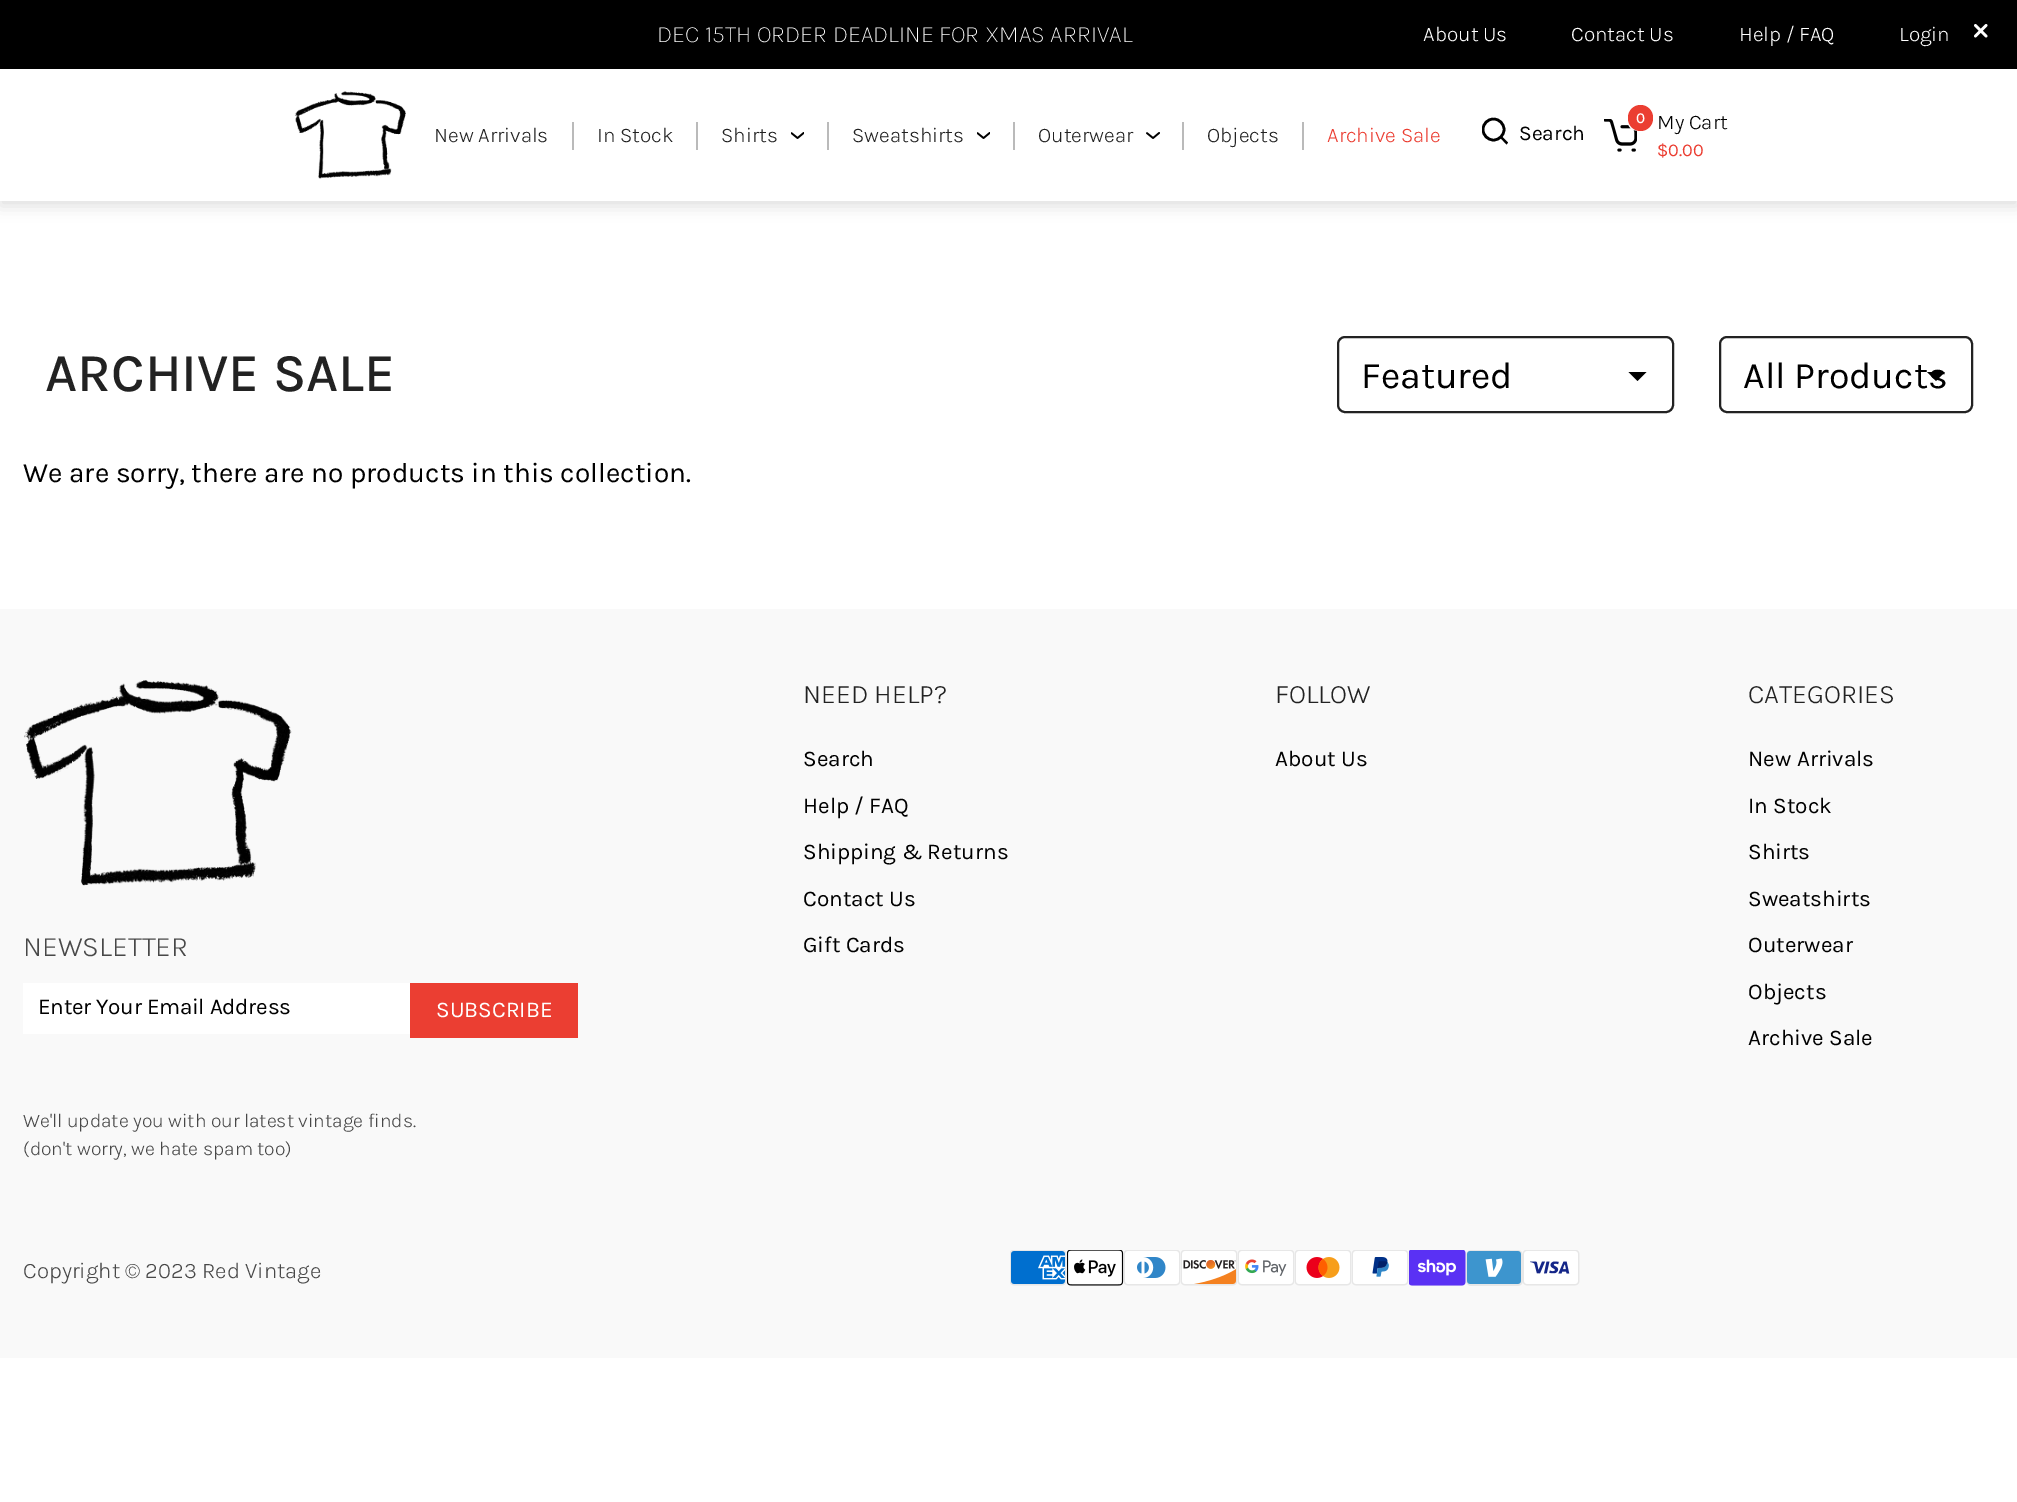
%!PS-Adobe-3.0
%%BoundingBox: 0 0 2017 1502
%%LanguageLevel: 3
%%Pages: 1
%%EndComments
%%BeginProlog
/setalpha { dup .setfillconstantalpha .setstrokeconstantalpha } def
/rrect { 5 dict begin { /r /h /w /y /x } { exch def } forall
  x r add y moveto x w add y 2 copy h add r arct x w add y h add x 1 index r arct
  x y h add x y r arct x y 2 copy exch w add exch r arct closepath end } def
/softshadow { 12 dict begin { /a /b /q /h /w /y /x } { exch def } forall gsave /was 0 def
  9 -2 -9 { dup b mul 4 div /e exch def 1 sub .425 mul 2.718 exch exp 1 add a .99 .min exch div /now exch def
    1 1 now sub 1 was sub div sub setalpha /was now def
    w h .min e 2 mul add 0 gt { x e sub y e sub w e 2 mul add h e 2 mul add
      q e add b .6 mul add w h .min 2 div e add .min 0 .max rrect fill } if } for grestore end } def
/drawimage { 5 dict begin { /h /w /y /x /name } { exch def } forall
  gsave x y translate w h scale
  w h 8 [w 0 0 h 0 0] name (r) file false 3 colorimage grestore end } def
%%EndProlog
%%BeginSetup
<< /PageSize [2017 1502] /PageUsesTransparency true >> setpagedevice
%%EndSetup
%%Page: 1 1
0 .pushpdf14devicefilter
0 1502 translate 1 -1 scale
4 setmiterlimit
1 setgray
0 0 2017 1502 rectfill
0 setgray
0 0 2017 69 rectfill
(images/1.raw) 1974 24 14 14 drawimage
gsave
newpath 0 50 moveto 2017 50 lineto 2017 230 lineto 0 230 lineto closepath 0 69 moveto 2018 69 lineto 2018 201 lineto 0 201 lineto closepath eoclip newpath
0 74 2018 132 0 7.5 0.12 softshadow
grestore
(images/2.raw) 294 91 112 88 drawimage
0.729 setgray
572 122 2 28 rectfill
696 122 2 28 rectfill
(images/3.raw) 791 132 13 7 drawimage
827 122 2 28 rectfill
(images/3.raw) 977 132 13 7 drawimage
1013 122 2 28 rectfill
(images/4.raw) 1146 132 14 7 drawimage
1182 122 2 28 rectfill
1302 122 2 28 rectfill
gsave
1482 116 27 31 rectclip
0 setgray
2.6 setlinewidth
newpath 1493.5 129.5 10.5 0 360 arc closepath stroke
grestore
0 setgray
newpath 1500.5 138 moveto 1502 136.5 lineto 1508 142.5 lineto 1506.5 144.5 lineto closepath fill
(images/5.raw) 1604 119 33 33 drawimage
0.922 0.243 0.196 setrgbcolor
1628 105 25 26 12.5 rrect fill
0 setgray
newpath 1646.5 372 moveto 1637.5 381 lineto 1628.5 372 lineto closepath fill
0.133 setgray
2 setlinewidth
1338 337 335 75 7 rrect stroke
0 setgray
newpath 1945 372 moveto 1936 381 lineto 1927 372 lineto closepath fill
0.133 setgray
1720 337 252 75 7 rrect stroke
0.976 setgray
0 609 2017 749 rectfill
(images/6.raw) 24 680 268 206 drawimage
1 setgray
23 983 387 51 rectfill
0.922 0.243 0.196 setrgbcolor
410 983 168 55 rectfill
(images/7.raw) 1010 1250 57 36 drawimage
(images/8.raw) 1067 1250 57 36 drawimage
(images/9.raw) 1124 1250 57 36 drawimage
(images/10.raw) 1181 1250 57 36 drawimage
(images/11.raw) 1238 1250 57 36 drawimage
(images/12.raw) 1295 1250 57 36 drawimage
(images/13.raw) 1352 1250 57 36 drawimage
(images/14.raw) 1409 1250 57 36 drawimage
(images/15.raw) 1466 1250 57 36 drawimage
(images/16.raw) 1523 1250 57 36 drawimage
/Karla-ExtraLight [24 0 0 -24 0 0] selectfont
1 setgray
657 42 moveto (DEC 15TH ORDER DEADLINE FOR XMAS ARRIVAL) show
/Karla-Light [21 0 0 -21 0 0] selectfont
1423 41 moveto (About Us) show
1571 41 moveto (Contact Us) show
1739 41 moveto (Help / FAQ) show
1899 41 moveto (Login) show
0.133 setgray
434 142 moveto (New Arrivals) show
597 142 moveto (In Stock) show
721 142 moveto (Shirts) show
852 142 moveto (Sweatshirts) show
1038 142 moveto (Outerwear) show
1207 142 moveto (Objects) show
0.922 0.243 0.196 setrgbcolor
1327 142 moveto (Archive Sale) show
/Karla-Regular [21 0 0 -21 0 0] selectfont
0 setgray
1519 140 moveto (Search) show
/Karla-Medium [15 0 0 -15 0 0] selectfont
1 setgray
1636 123 moveto (0) show
/Karla-Light [21 0 0 -21 0 0] selectfont
0 setgray
1657 129 moveto (My Cart) show
/Karla-Regular [18 0 0 -18 0 0] selectfont
0.922 0.243 0.196 setrgbcolor
1657 156 moveto ($0.00) show
/Karla-Medium [54 0 0 -54 0 0] selectfont
0.133 setgray
45 391 moveto (ARCHIVE SALE) show
/Karla-Regular [37.5 0 0 -37.5 0 0] selectfont
0 setgray
1361 388 moveto (Featured) show
1743 388 moveto (All Products) show
/Karla-Regular [28 0 0 -28 0 0] selectfont
23 482 moveto (We are sorry, there are no products in this collection.) show
/Karla-Light [28.5 0 0 -28.5 0 0] selectfont
0.282 setgray
23 956 moveto (NEWSLETTER) show
/Karla-Regular [22.5 0 0 -22.5 0 0] selectfont
0 setgray
38 1014 moveto -0.25 0 (Enter Your Email Address) ashow
1 setgray
436 1017 moveto (SUBSCRIBE) show
/Karla-Light [19.5 0 0 -19.5 0 0] selectfont
0.282 setgray
23 1127 moveto (We'll update you with our latest vintage finds.) show
23 1155 moveto (\(don't worry, we hate spam too\)) show
/Karla-Light [27 0 0 -27 0 0] selectfont
0.133 setgray
803 703 moveto (NEED HELP?) show
/Karla-Regular [22.5 0 0 -22.5 0 0] selectfont
0 setgray
803 766 moveto (Search) show
803 813 moveto (Help / FAQ) show
803 859 moveto (Shipping & Returns) show
803 906 moveto (Contact Us) show
803 952 moveto (Gift Cards) show
/Karla-Light [27 0 0 -27 0 0] selectfont
0.133 setgray
1275 703 moveto (FOLLOW) show
/Karla-Regular [22.5 0 0 -22.5 0 0] selectfont
0 setgray
1275 766 moveto (About Us) show
/Karla-Light [27 0 0 -27 0 0] selectfont
0.133 setgray
1748 703 moveto (CATEGORIES) show
/Karla-Regular [22.5 0 0 -22.5 0 0] selectfont
0 setgray
1748 766 moveto (New Arrivals) show
1748 813 moveto (In Stock) show
1748 859 moveto (Shirts) show
1748 906 moveto (Sweatshirts) show
1748 952 moveto (Outerwear) show
1748 999 moveto (Objects) show
1748 1045 moveto (Archive Sale) show
/Karla-Light [22.5 0 0 -22.5 0 0] selectfont
0.282 setgray
23 1278 moveto (Copyright © 2023 Red Vintage) show
.poppdf14devicefilter showpage
%%EOF
